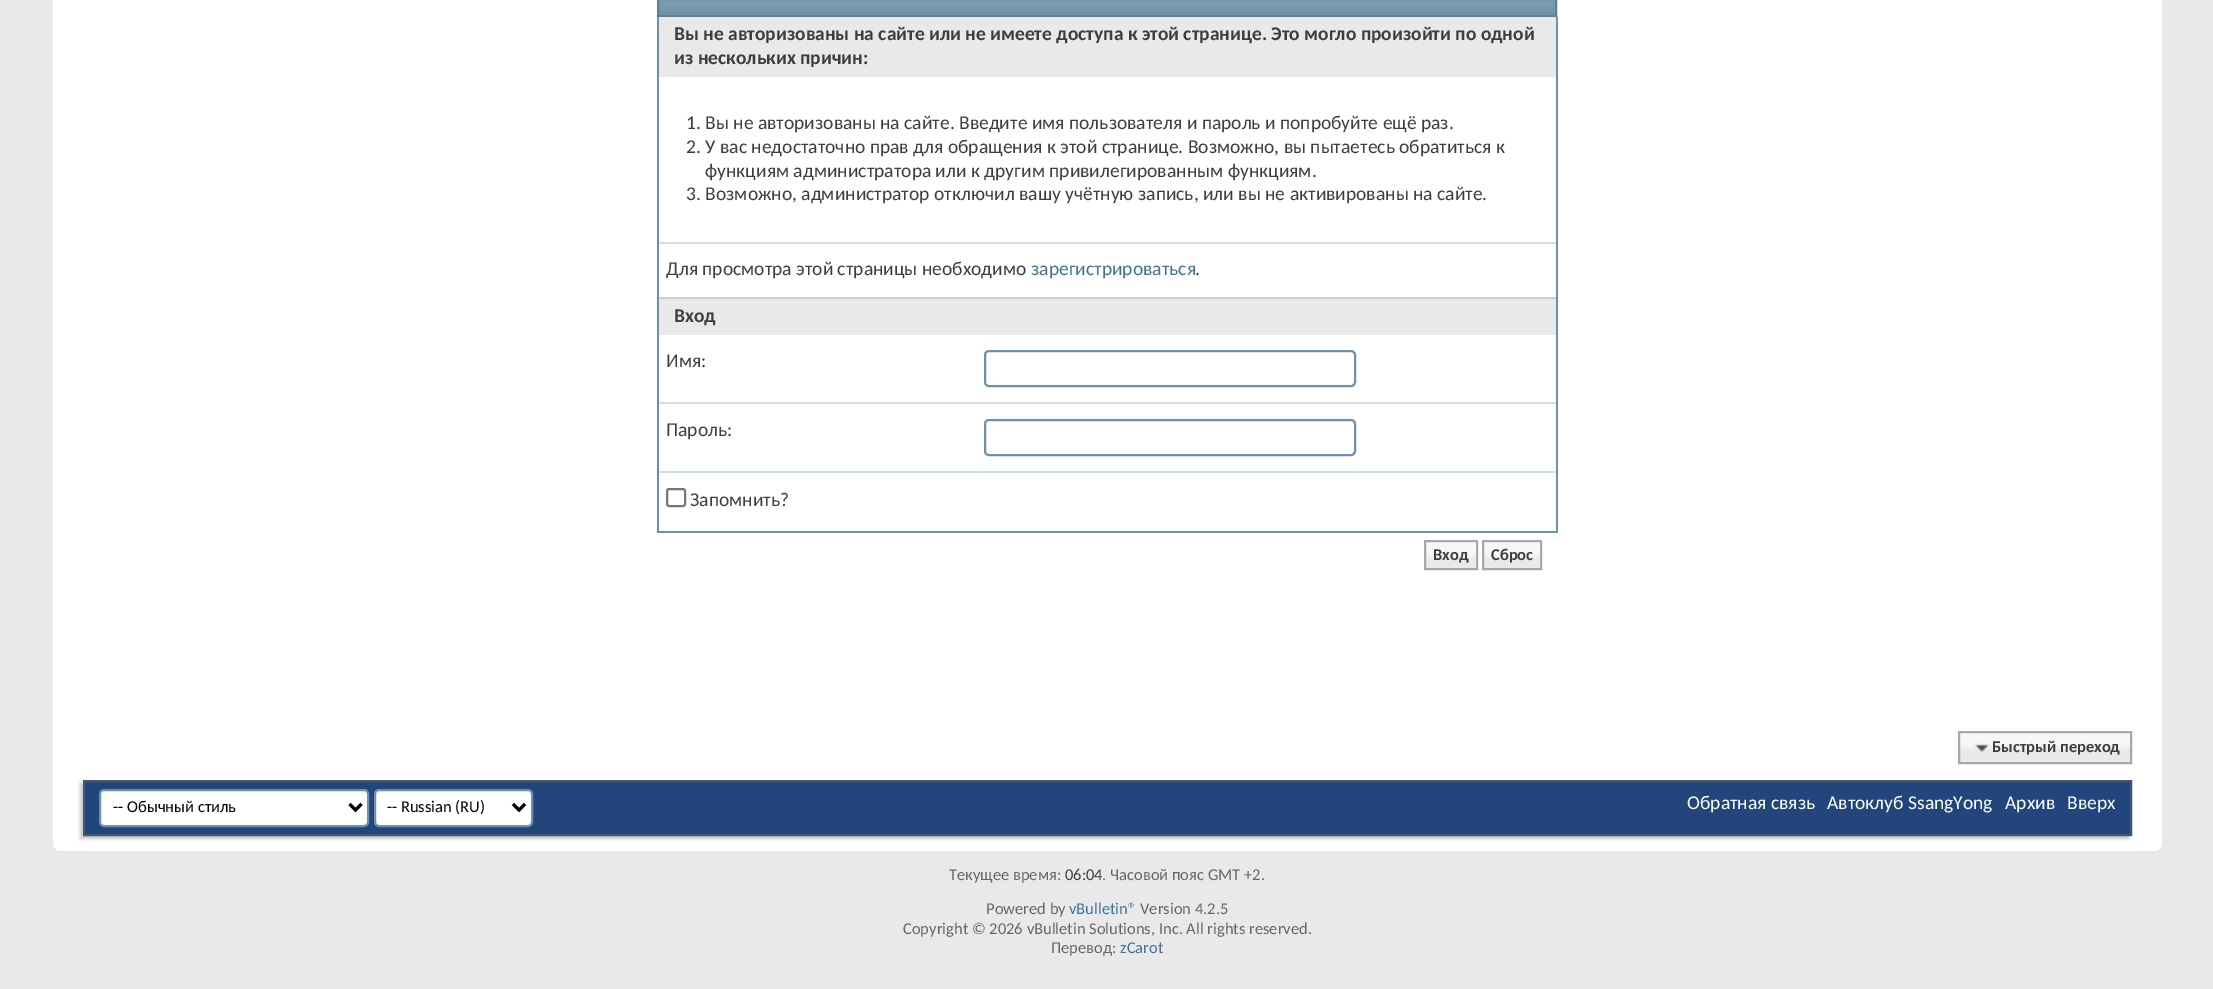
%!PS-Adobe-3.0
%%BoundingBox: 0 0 2213 989
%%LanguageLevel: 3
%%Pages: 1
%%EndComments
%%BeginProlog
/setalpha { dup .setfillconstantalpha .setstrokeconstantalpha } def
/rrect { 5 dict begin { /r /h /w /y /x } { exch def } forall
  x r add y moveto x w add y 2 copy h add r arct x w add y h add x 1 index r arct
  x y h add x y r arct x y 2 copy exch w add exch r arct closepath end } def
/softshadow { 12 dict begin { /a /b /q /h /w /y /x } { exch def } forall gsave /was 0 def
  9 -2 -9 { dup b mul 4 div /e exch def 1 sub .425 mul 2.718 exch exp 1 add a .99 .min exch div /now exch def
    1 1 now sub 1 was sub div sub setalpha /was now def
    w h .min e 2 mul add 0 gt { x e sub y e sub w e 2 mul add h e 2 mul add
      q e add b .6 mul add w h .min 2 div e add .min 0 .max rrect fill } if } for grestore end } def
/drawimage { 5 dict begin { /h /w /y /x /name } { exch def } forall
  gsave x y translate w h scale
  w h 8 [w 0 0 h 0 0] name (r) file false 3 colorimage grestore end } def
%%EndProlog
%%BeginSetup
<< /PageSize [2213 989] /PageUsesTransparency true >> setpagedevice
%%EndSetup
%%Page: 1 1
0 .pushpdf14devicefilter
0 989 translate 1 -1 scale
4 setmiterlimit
0.914 setgray
0 0 2213 989 rectfill
1 setgray
53 -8 2109 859 8 rrect fill
0.443 0.573 0.659 setrgbcolor
659 0 896 15 rectfill
(images/1.raw) 659 0 896 11 drawimage
0.353 0.498 0.592 setrgbcolor
2 setlinewidth
658 -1 898 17 rectstroke
0.42 0.569 0.671 setrgbcolor
1556 17 2 516 rectfill
657 531 900 2 rectfill
657 17 2 516 rectfill
0.914 setgray
659 17 897 60 rectfill
0.808 0.875 0.922 setrgbcolor
659 242 897 2 rectfill
0.914 setgray
659 299 897 36 rectfill
0.808 setgray
659 297 897 2 rectfill
0.42 0.569 0.671 setrgbcolor
985 351 370 35 4 rrect stroke
0.808 0.875 0.922 setrgbcolor
659 402 897 2 rectfill
0.42 0.569 0.671 setrgbcolor
985 420 370 35 4 rrect stroke
0.808 0.875 0.922 setrgbcolor
659 471 897 2 rectfill
0.463 setgray
667 489 18 17 2 rrect stroke
0.914 setgray
1426 542 50 26 rectfill
(images/2.raw) 1426 542 50 17 drawimage
0.659 setgray
1425 541 52 28 rectstroke
0.914 setgray
1484 542 56 26 rectfill
(images/3.raw) 1484 542 56 17 drawimage
0.659 setgray
1483 541 58 28 rectstroke
0.914 setgray
1960 733 170 29 rectfill
(images/4.raw) 1960 733 170 17 drawimage
0.659 setgray
1959 732 172 31 rectstroke
(images/5.raw) 1975 743 14 10 drawimage
0.784 setgray
80 783 2049 56 0 1.5 1 softshadow
0.133 0.271 0.482 setrgbcolor
newpath 84 781 moveto 2131 781 lineto 2131 835 lineto 84 835 lineto closepath gsave fill grestore
0.259 0.341 0.412 setrgbcolor
stroke
1 setgray
100 790 268 36 4 rrect gsave fill grestore
0.42 0.569 0.671 setrgbcolor
stroke
0 setgray
3 setlinewidth
newpath 349.5 804 moveto 355.5 810 lineto 361.5 804 lineto stroke
1 setgray
375 790 157 36 4 rrect gsave fill grestore
0.42 0.569 0.671 setrgbcolor
2 setlinewidth
stroke
0 setgray
3 setlinewidth
newpath 513 804 moveto 519 810 lineto 525 804 lineto stroke
/Carlito-Bold [19.5 0 0 -19.5 0 0] selectfont
0.243 setgray
674 40 moveto (Вы не авторизованы на сайте или не имеете доступа к этой странице. Это могло произойти по одной) show
674 64 moveto (из нескольких причин:) show
/Carlito-Regular [19.5 0 0 -19.5 0 0] selectfont
686 129 moveto (1. Вы не авторизованы на сайте. Введите имя пользователя и пароль и попробуйте ещё раз.) show
686 153 moveto (2. У вас недостаточно прав для обращения к этой странице. Возможно, вы пытаетесь обратиться к) show
705 177 moveto (функциям администратора или к другим привилегированным функциям.) show
686 200 moveto (3. Возможно, администратор отключил вашу учётную запись, или вы не активированы на сайте.) show
666 275 moveto (Для просмотра этой страницы необходимо) show
0.255 0.451 0.58 setrgbcolor
1031 275 moveto (зарегистрироваться) show
0.243 setgray
1195 275 moveto (.) show
/Carlito-Bold [19.5 0 0 -19.5 0 0] selectfont
674 322 moveto (Вход) show
/Carlito-Regular [19.5 0 0 -19.5 0 0] selectfont
666 367 moveto (Имя:) show
666 436 moveto (Пароль:) show
690 506 moveto (Запомнить?) show
/Carlito-Bold [16.5 0 0 -16.5 0 0] selectfont
1433 560 moveto (Вход) show
1491 560 moveto (Сброс) show
1992 752 moveto (Быстрый переход) show
/Carlito-Regular [16.5 0 0 -16.5 0 0] selectfont
0 setgray
113 812 moveto (-- Обычный стиль) show
387 812 moveto (-- Russian \(RU\)) show
/Carlito-Regular [19.5 0 0 -19.5 0 0] selectfont
1 setgray
1687 809 moveto (Обратная связь) show
1827 809 moveto (Автоклуб SsangYong) show
2005 809 moveto (Архив) show
2067 809 moveto (Вверх) show
/Carlito-Regular [16.5 0 0 -16.5 0 0] selectfont
0.4 setgray
949 880 moveto (Текущее время:) show
0.243 setgray
1065 880 moveto (06:04) show
0.4 setgray
1102 880 moveto (. Часовой пояс GMT +2.) show
986 914 moveto (Powered by) show
0.255 0.451 0.58 setrgbcolor
1069 914 moveto (vBulletin®) show
0.4 setgray
1140 914 moveto (Version 4.2.5) show
903 934 moveto (Copyright © 2026 vBulletin Solutions, Inc. All rights reserved.) show
1051 953 moveto (Перевод:) show
0.255 0.451 0.58 setrgbcolor
1120 953 moveto (zCarot) show
.poppdf14devicefilter showpage
%%EOF
